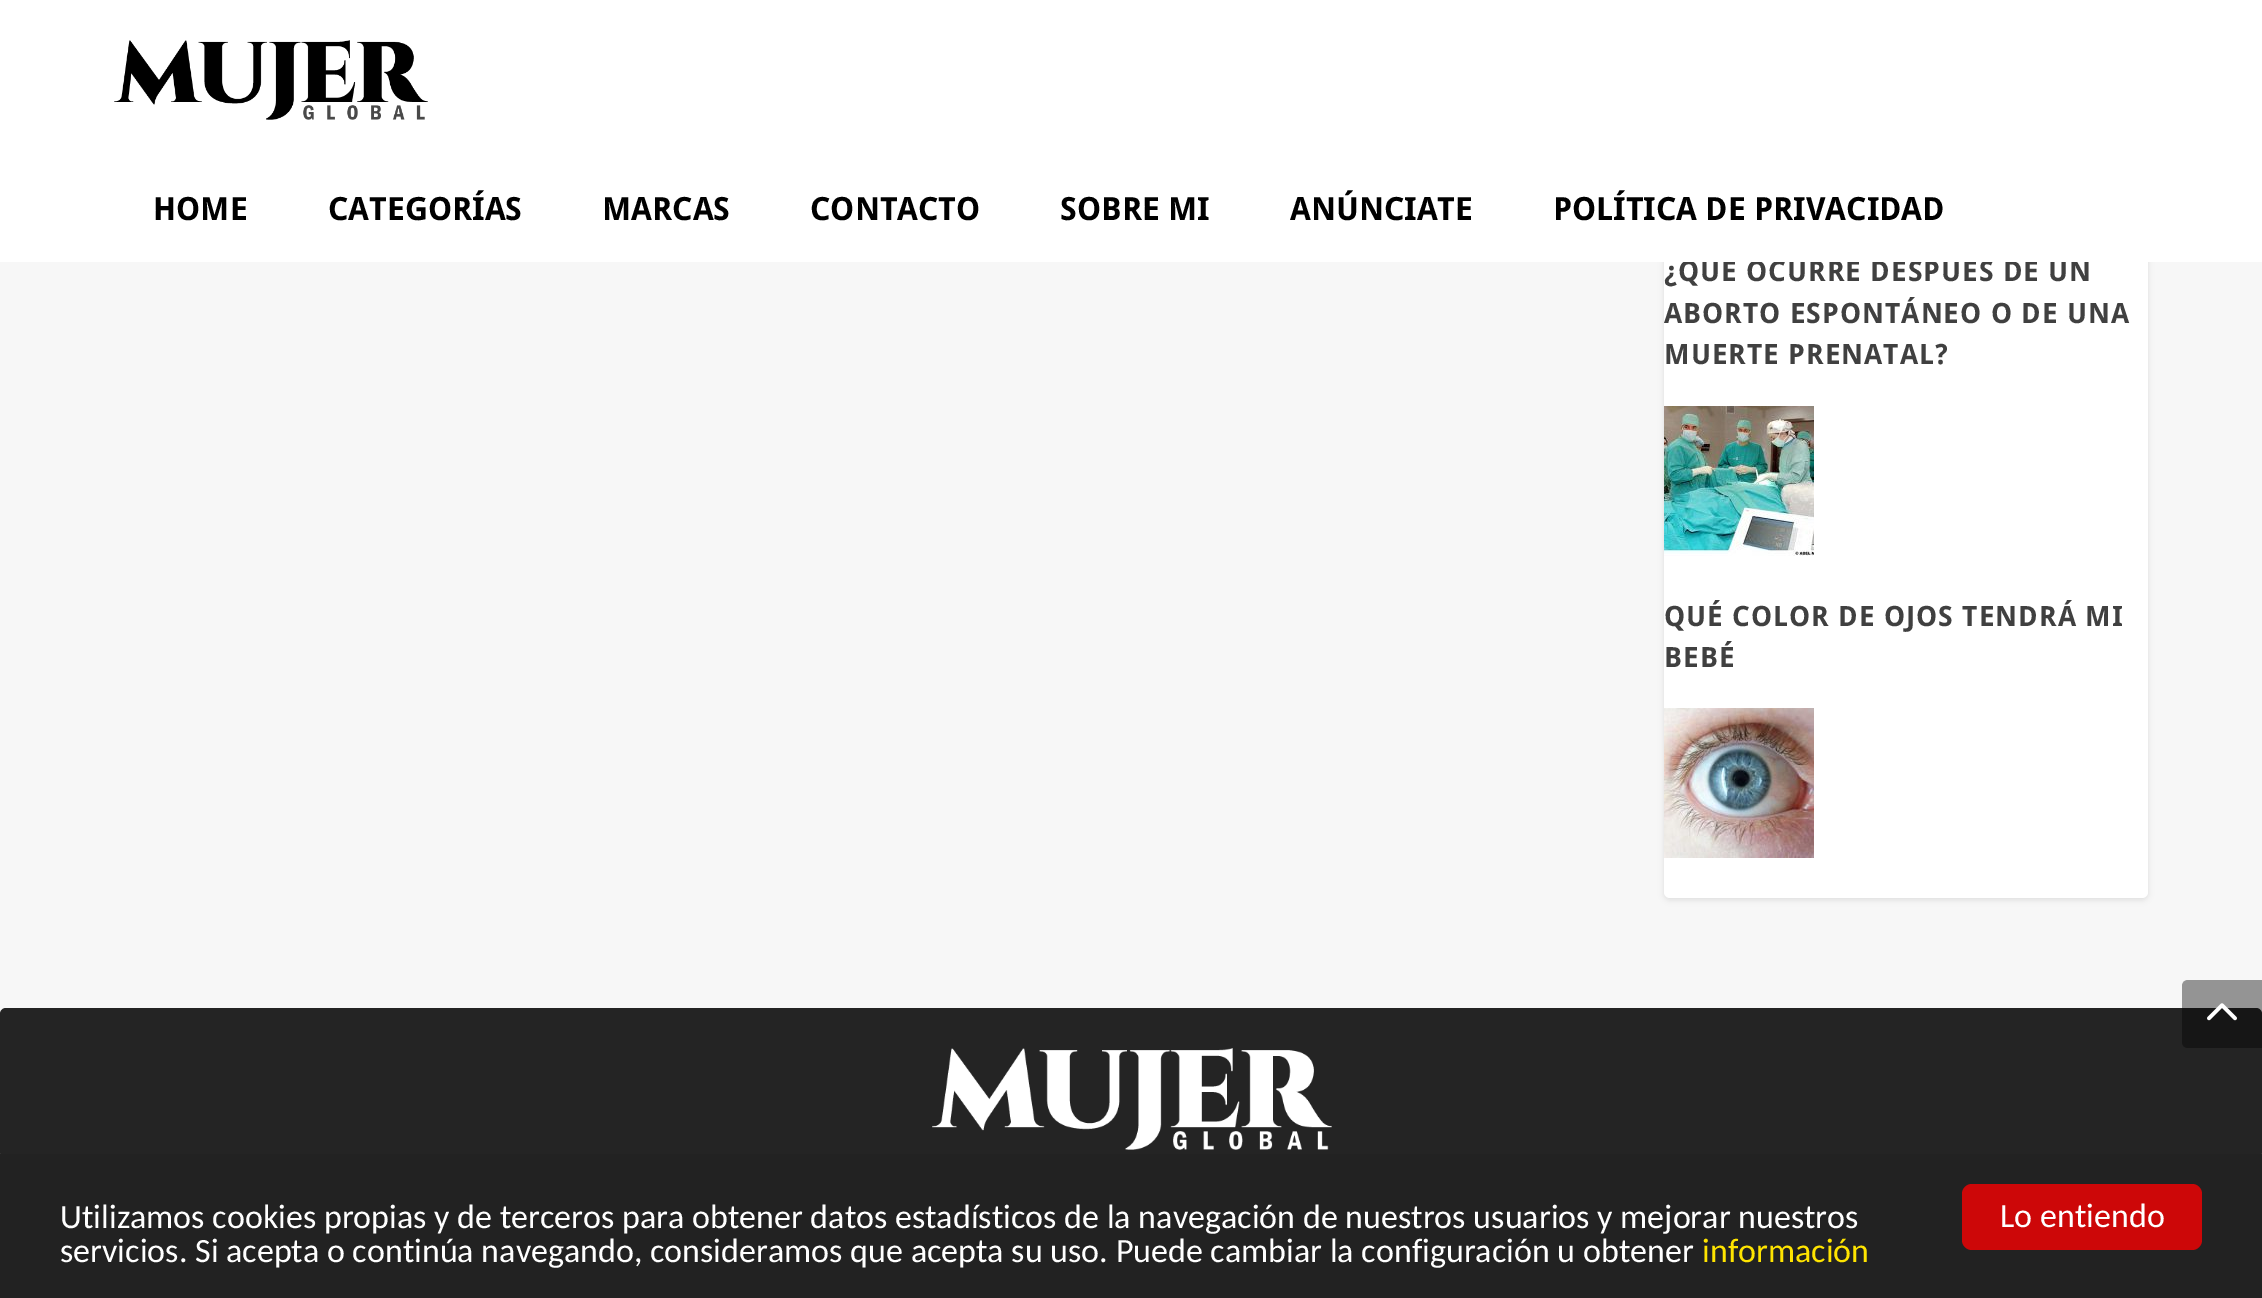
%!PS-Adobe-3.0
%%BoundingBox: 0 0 2262 1298
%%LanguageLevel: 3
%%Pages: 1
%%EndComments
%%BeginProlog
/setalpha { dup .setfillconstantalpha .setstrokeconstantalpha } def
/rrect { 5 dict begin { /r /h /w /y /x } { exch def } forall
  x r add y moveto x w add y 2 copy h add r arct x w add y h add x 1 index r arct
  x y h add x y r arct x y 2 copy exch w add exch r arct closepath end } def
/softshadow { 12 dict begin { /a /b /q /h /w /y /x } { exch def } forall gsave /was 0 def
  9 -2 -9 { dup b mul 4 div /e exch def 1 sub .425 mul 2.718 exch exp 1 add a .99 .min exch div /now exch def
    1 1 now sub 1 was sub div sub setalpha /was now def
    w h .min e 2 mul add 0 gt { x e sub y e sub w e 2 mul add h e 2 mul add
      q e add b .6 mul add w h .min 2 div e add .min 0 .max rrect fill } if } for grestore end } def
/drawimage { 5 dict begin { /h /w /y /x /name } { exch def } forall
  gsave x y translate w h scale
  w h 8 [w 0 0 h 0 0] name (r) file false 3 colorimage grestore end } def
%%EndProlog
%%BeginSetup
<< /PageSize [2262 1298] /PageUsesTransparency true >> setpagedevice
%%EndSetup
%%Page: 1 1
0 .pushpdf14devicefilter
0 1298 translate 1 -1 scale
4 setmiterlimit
0.969 setgray
0 0 2262 1298 rectfill
0 setgray
1664 -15 484 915 6 3 0.1 softshadow
1 setgray
1664 -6 484 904 6 rrect fill
(images/2.raw) 1664 406 150 150 drawimage
(images/3.raw) 1664 708 150 150 drawimage
0.141 setgray
0 1008 2262 150 6 rrect fill
(images/4.raw) 932 1048 400 102 drawimage
0.4 setalpha
0 setgray
newpath 2188 980 moveto 2262 980 lineto 2262 1048 lineto 2188 1048 lineto 2184.5 1048 2182 1045.5 2182 1042 curveto 2182 986 lineto 2182 982.5 2184.5 980 2188 980 curveto closepath fill
1 setalpha
(images/5.raw) 2207 1003 30 18 drawimage
0.133 setgray
0 1154 2262 144 rectfill
0.804 0.027 0.031 setrgbcolor
1962 1184 240 66 10 rrect fill
/DroidSans-Bold [28 0 0 -28 0 0] selectfont
0.251 setgray
1664 281 moveto 1 0 (¿QUÉ OCURRE DESPUÉS DE UN) ashow
1 setgray
0 0 2262 262 rectfill
/DroidSans-Bold [32 0 0 -32 0 0] selectfont
0 setgray
1553 220 moveto (POLÍTICA DE PRIVACIDAD) show
1290 220 moveto (ANÚNCIATE) show
1060 220 moveto (SOBRE MI) show
810 220 moveto (CONTACTO) show
602 220 moveto (MARCAS) show
328 220 moveto (CATEGORÍAS) show
153 220 moveto (HOME) show
(images/1.raw) 114 40 314 80 drawimage
/DroidSans-Bold [28 0 0 -28 0 0] selectfont
0.251 setgray
1664 323 moveto 1 0 (ABORTO ESPONTÁNEO O DE UNA) ashow
1664 364 moveto 1 0 (MUERTE PRENATAL?) ashow
1664 626 moveto 1 0 (QUÉ COLOR DE OJOS TENDRÁ MI) ashow
1664 667 moveto 1 0 (BEBÉ) ashow
/Carlito-Regular [34 0 0 -34 0 0] selectfont
1 setgray
60 1228 moveto (Utilizamos cookies propias y de terceros para obtener datos estadísticos de la navegación de nuestros usuarios y mejorar nuestros) show
60 1262 moveto (servicios. Si acepta o continúa navegando, consideramos que acepta su uso. Puede cambiar la configuración u obtener) show
1 0.894 0 setrgbcolor
1702 1262 moveto (información) show
1 setgray
2000 1227 moveto (Lo entiendo) show
.poppdf14devicefilter showpage
%%EOF
